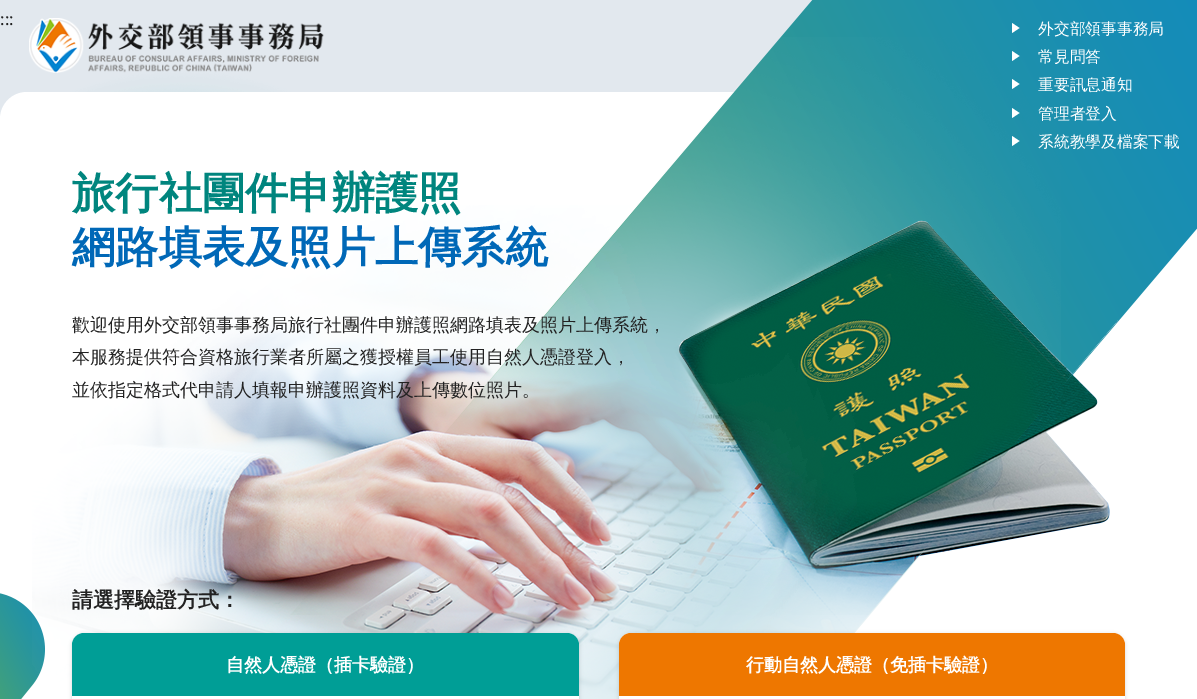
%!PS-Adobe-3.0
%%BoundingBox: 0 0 1197 699
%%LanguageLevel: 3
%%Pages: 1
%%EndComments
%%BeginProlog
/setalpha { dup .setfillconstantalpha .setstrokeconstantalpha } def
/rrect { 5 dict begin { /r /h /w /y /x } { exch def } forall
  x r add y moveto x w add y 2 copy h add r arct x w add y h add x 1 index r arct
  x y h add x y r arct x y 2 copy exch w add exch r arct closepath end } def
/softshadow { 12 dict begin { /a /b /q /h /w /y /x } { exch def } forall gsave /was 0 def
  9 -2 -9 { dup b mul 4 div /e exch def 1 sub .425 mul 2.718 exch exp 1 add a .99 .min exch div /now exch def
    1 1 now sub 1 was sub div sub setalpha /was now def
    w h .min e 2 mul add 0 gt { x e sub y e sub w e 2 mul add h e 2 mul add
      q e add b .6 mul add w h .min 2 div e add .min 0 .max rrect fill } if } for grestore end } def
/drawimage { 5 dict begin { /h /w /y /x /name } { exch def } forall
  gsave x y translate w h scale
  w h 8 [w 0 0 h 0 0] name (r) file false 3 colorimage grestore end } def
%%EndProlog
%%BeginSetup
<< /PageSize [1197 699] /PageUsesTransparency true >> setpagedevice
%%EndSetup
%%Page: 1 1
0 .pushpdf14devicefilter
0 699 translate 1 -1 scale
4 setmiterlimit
0.886 0.91 0.933 setrgbcolor
0 0 1197 699 rectfill
(images/1.raw) 108 82 147 10 drawimage
1 setgray
0 92 1197 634 27 rrect fill
(images/4.raw) 0 593 45 106 drawimage
(images/3.raw) 32 0 1165 699 drawimage
(images/2.raw) 29 18 295 55 drawimage
newpath 1012 23 moveto 1019.5 28 lineto 1012 33 lineto closepath 1012 51 moveto 1019.5 56 lineto 1012 61 lineto closepath fill
newpath 1012 79 moveto 1019.5 84 lineto 1012 89 lineto closepath 1012 108 moveto 1019.5 113 lineto 1012 118 lineto closepath fill
newpath 1012 136 moveto 1019.5 141 lineto 1012 146 lineto closepath fill
0 setgray
72 634 507 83 12 2 0.16 softshadow
1 setgray
72 633 507 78 12 rrect fill
0 0.62 0.588 setrgbcolor
newpath 84 633 moveto 567 633 lineto 573.5 633 579 638.5 579 645 curveto 579 696 lineto 72 696 lineto 72 645 lineto 72 638.5 77.5 633 84 633 curveto closepath fill
0 setgray
619 634 506 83 12 2 0.16 softshadow
1 setgray
619 633 506 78 12 rrect fill
0.933 0.467 0 setrgbcolor
newpath 631 633 moveto 1113 633 lineto 1119.5 633 1125 638.5 1125 645 curveto 1125 696 lineto 619 696 lineto 619 645 lineto 619 638.5 624.5 633 631 633 curveto closepath fill
/Lato-Regular [18 0 0 -18 0 0] selectfont
0.133 setgray
0 25 moveto (:::) show
/WenQuanYiZenHei-Medium [15.75 0 0 -15.75 0 0] selectfont
1 setgray
1038 34 moveto (外交部領事事務局) show
1038 62 moveto (常見問答) show
1038 90 moveto (重要訊息通知) show
1038 119 moveto (管理者登入) show
1038 147 moveto (系統教學及檔案下載) show
/WenQuanYiZenHei-Bold [43.25 0 0 -43.25 0 0] selectfont
0 0.522 0.494 setrgbcolor
72 208 moveto (旅行社團件申辦護照) show
0 0.408 0.718 setrgbcolor
72 262 moveto (網路填表及照片上傳系統) show
/WenQuanYiZenHei-Medium [18 0 0 -18 0 0] selectfont
0.133 setgray
72 331 moveto (歡迎使用外交部領事事務局旅行社團件申辦護照網路填表及照片上傳系統，) show
72 363 moveto (本服務提供符合資格旅行業者所屬之獲授權員工使用自然人憑證登入，) show
72 396 moveto (並依指定格式代申請人填報申辦護照資料及上傳數位照片。) show
/WenQuanYiZenHei-Bold [21 0 0 -21 0 0] selectfont
72 607 moveto (請選擇驗證方式：) show
/WenQuanYiZenHei-Bold [18 0 0 -18 0 0] selectfont
1 setgray
226 671 moveto (自然人憑證（插卡驗證）) show
746 671 moveto (行動自然人憑證（免插卡驗證）) show
.poppdf14devicefilter showpage
%%EOF
